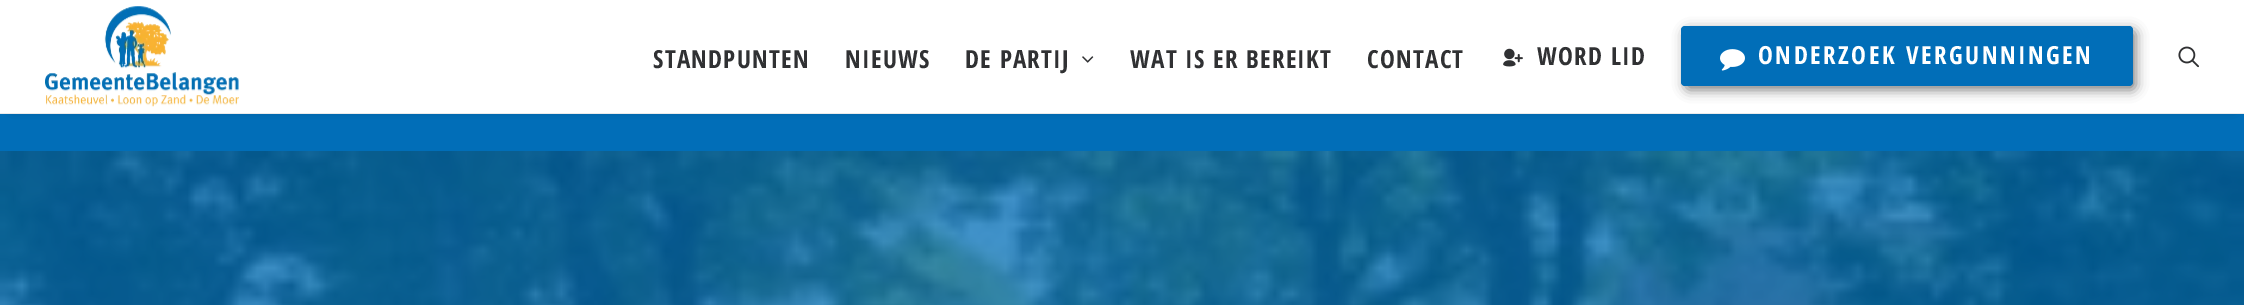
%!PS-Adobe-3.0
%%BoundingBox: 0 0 2244 305
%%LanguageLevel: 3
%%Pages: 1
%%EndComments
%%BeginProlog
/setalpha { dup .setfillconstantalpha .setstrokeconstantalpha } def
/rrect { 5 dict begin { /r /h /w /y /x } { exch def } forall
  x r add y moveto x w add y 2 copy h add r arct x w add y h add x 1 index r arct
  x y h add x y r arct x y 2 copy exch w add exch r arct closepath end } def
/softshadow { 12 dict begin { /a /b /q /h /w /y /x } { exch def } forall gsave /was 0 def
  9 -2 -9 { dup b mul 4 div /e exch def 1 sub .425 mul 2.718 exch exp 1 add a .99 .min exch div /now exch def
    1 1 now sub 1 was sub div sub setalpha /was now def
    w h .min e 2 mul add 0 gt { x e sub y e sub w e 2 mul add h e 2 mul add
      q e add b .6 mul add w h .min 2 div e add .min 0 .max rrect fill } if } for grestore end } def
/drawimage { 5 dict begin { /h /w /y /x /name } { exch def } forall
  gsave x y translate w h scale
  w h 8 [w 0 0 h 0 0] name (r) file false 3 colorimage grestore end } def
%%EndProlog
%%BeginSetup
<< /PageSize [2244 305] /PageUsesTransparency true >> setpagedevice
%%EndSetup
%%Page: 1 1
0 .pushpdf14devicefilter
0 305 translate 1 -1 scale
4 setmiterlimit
0.004 0.431 0.722 setrgbcolor
0 0 2244 305 rectfill
0 setgray
13 18 2220 88 0 6 0.6 softshadow
1 setgray
0 0 2244 113 rectfill
0.918 setgray
0 113 2244 1 rectfill
(images/1.raw) 45 6 194 101 drawimage
(images/2.raw) 1082 56 12 7 drawimage
(images/3.raw) 1503 48 20 19 drawimage
0 setgray
1685 30 451 60 4 6 0.5 softshadow
0.004 0.431 0.722 setrgbcolor
1681 26 452 60 4 rrect fill
(images/4.raw) 1720 49 25 22 drawimage
(images/5.raw) 2178 46 21 22 drawimage
(images/6.raw) 0 151 2244 154 drawimage
/OpenSansCondensed-Bold [25 0 0 -25 0 0] selectfont
0.188 0.192 0.2 setrgbcolor
653 68 moveto 1.25 0 (STANDPUNTEN) ashow
845 68 moveto 1.25 0 (NIEUWS) ashow
965 68 moveto 1.25 0 (DE PARTIJ) ashow
1130 68 moveto 1.25 0 (WAT IS ER BEREIKT) ashow
1367 68 moveto 1.25 0 (CONTACT) ashow
1537 65 moveto 1.25 0 (WORD LID) ashow
1 setgray
1758 64 moveto 2.5 0 (ONDERZOEK VERGUNNINGEN) ashow
.poppdf14devicefilter showpage
%%EOF
